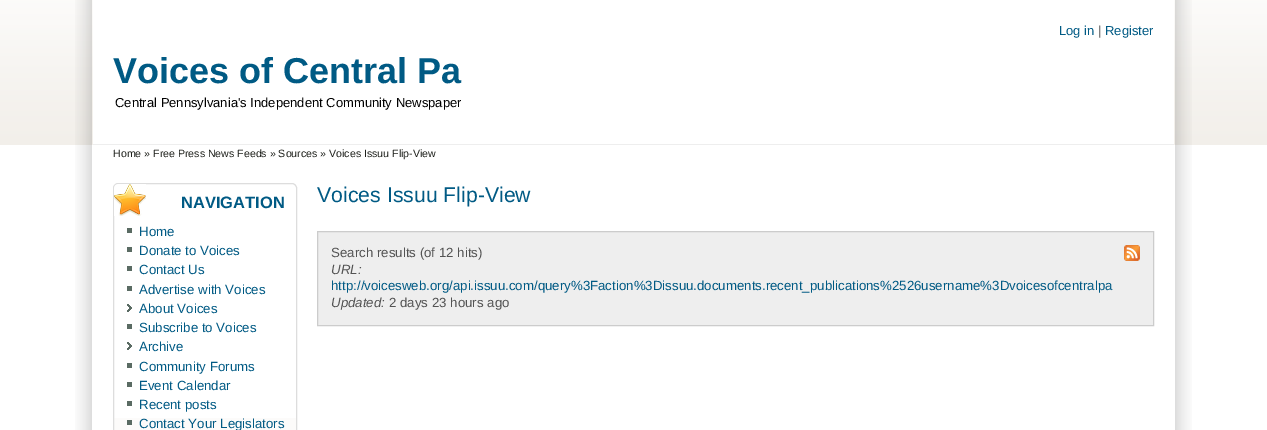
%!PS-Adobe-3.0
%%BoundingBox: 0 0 1267 430
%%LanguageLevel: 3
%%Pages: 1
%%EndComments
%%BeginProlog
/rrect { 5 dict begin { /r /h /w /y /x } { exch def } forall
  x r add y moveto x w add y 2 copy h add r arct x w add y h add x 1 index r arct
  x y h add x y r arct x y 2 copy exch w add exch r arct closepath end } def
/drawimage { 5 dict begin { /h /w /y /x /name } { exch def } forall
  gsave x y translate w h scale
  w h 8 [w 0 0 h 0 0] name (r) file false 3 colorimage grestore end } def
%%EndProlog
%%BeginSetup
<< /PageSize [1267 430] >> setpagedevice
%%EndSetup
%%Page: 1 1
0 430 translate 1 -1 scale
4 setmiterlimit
1 setgray
0 0 1267 430 rectfill
(images/1.raw) 0 0 1267 145 drawimage
(images/2.raw) 75 0 17 145 drawimage
(images/3.raw) 1175 0 17 145 drawimage
93 0 1081 144 rectfill
0.933 setgray
93 144 1081 1 rectfill
(images/4.raw) 75 145 17 285 drawimage
(images/5.raw) 1175 145 17 285 drawimage
0.988 0.984 0.98 setrgbcolor
114 418 182 12 rectfill
0.867 setgray
113.5 183.5 183 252 4.5 rrect stroke
(images/6.raw) 114 184 32 32 drawimage
0.353 0.42 0.388 setrgbcolor
127 228 5 5 rectfill
127 247 5 5 rectfill
127 266 5 5 rectfill
127 286 5 5 rectfill
(images/7.raw) 127 304 5 8 drawimage
127 324 5 5 rectfill
(images/7.raw) 127 342 5 8 drawimage
127 363 5 5 rectfill
127 382 5 5 rectfill
127 401 5 5 rectfill
127 420 5 5 rectfill
0.933 setgray
newpath 317.5 231.5 moveto 1153.5 231.5 lineto 1153.5 325.5 lineto 317.5 325.5 lineto closepath gsave fill grestore
0.8 setgray
stroke
(images/8.raw) 1124 245 16 16 drawimage
/LiberationSans-Regular [13 0 0 -13 0 0] selectfont
0 0.353 0.518 setrgbcolor
1059 35 moveto (Log in) show
0.325 setgray
1098 35 moveto (|) show
0 0.353 0.518 setrgbcolor
1105 35 moveto (Register) show
/LiberationSans-Bold [36 0 0 -36 0 0] selectfont
113 83 moveto (Voices of Central Pa) show
/LiberationSans-Regular [13 0 0 -13 0 0] selectfont
0 setgray
115 107 moveto (Central Pennsylvania's Independent Community Newspaper) show
/LiberationSans-Regular [10.6 0 0 -10.6 0 0] selectfont
0.118 0.125 0.106 setrgbcolor
113 157 moveto (Home » Free Press News Feeds » Sources » Voices Issuu Flip-View) show
/LiberationSans-Bold [16.5 0 0 -16.5 0 0] selectfont
0 0.353 0.518 setrgbcolor
181 208 moveto (NAVIGATION) show
/LiberationSans-Regular [13.28 0 0 -13.28 0 0] selectfont
139 236 moveto (Home) show
139 255 moveto (Donate to Voices) show
139 274 moveto (Contact Us) show
139 294 moveto (Advertise with Voices) show
139 313 moveto (About Voices) show
139 332 moveto (Subscribe to Voices) show
139 351 moveto (Archive) show
139 371 moveto (Community Forums) show
139 390 moveto (Event Calendar) show
139 409 moveto (Recent posts) show
139 428 moveto (Contact Your Legislators) show
/LiberationSans-Regular [21.25 0 0 -21.25 0 0] selectfont
317 202 moveto (Voices Issuu Flip-View) show
/LiberationSans-Regular [13.28 0 0 -13.28 0 0] selectfont
0.325 setgray
331 257 moveto (Search results \(of 12 hits\)) show
/LiberationSans-Italic [13.28 0 0 -13.28 0 0] selectfont
331 274 moveto (URL:) show
/LiberationSans-Regular [13.28 0 0 -13.28 0 0] selectfont
0 0.353 0.518 setrgbcolor
331 290 moveto (http://voicesweb.org/api.issuu.com/query%3Faction%3Dissuu.documents.recent_publications%2526username%3Dvoicesofcentralpa) show
/LiberationSans-Italic [13.28 0 0 -13.28 0 0] selectfont
0.325 setgray
331 307 moveto (Updated:) show
/LiberationSans-Regular [13.28 0 0 -13.28 0 0] selectfont
389 307 moveto (2 days 23 hours ago) show
showpage
%%EOF
